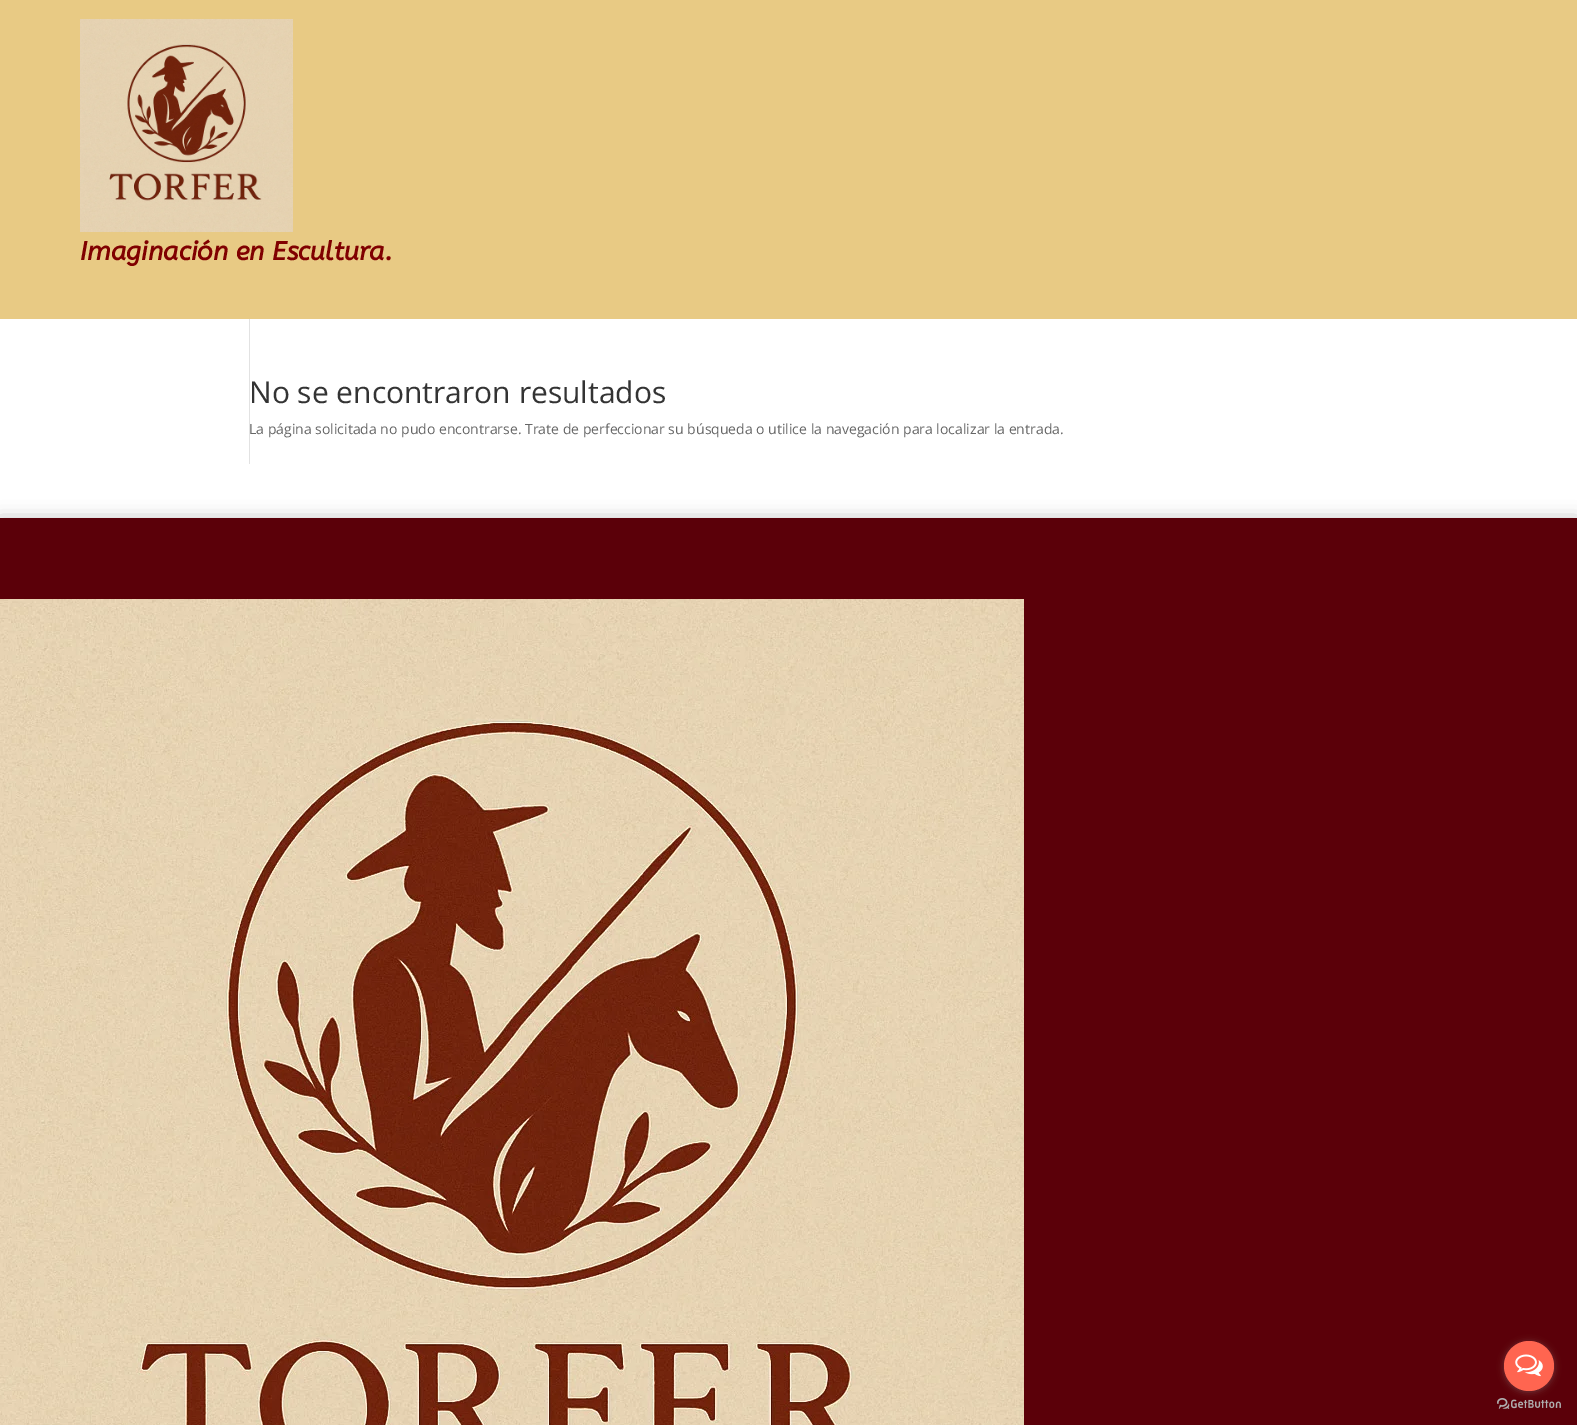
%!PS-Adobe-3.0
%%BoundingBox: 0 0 1577 1425
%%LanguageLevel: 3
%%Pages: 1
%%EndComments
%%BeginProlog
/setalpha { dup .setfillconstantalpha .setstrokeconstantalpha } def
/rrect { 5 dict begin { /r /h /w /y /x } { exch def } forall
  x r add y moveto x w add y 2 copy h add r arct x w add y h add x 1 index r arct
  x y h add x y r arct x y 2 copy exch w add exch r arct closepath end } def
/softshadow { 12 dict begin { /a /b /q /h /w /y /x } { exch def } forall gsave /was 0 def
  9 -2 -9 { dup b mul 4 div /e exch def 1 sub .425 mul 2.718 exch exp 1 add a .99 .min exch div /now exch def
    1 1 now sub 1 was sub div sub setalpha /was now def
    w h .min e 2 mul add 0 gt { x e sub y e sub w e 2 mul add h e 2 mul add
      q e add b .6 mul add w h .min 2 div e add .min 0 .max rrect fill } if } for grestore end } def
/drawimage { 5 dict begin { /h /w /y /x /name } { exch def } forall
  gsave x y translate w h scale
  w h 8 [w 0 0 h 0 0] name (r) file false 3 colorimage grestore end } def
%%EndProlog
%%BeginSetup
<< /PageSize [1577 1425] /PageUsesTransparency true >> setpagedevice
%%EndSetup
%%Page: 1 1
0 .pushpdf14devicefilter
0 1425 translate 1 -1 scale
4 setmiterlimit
1 setgray
0 0 1577 1425 rectfill
0.91 0.792 0.518 setrgbcolor
0 0 1577 319 rectfill
(images/1.raw) 80 19 213 213 drawimage
0 setgray
0 520 1577 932 0 9 0.3 softshadow
0.357 0 0.035 setrgbcolor
0 518 1577 907 rectfill
(images/2.raw) 0 599 1024 826 drawimage
(images/4.raw) 1497 1398 64 11 drawimage
0.533 setgray
1504 1342 50 50 25 3.5 0.4 softshadow
1 0.396 0.314 setrgbcolor
newpath 1529 1366 25 0 360 arc closepath fill
(images/3.raw) 1515 1354 28 23 drawimage
/ABeeZee-BoldItalic [26 0 0 -26 0 0] selectfont
0.502 0 0 setrgbcolor
80 260 moveto (Imaginación en Escultura.) show
/OpenSans-Regular [30 0 0 -30 0 0] selectfont
0.2 setgray
249 403 moveto (No se encontraron resultados) show
/OpenSans-Regular [14 0 0 -14 0 0] selectfont
0.4 setgray
249 434 moveto (La página solicitada no pudo encontrarse. Trate de perfeccionar su búsqueda o utilice la navegación para localizar la entrada.) show
0.886 setgray
249 319 1 145 rectfill
.poppdf14devicefilter showpage
%%EOF
